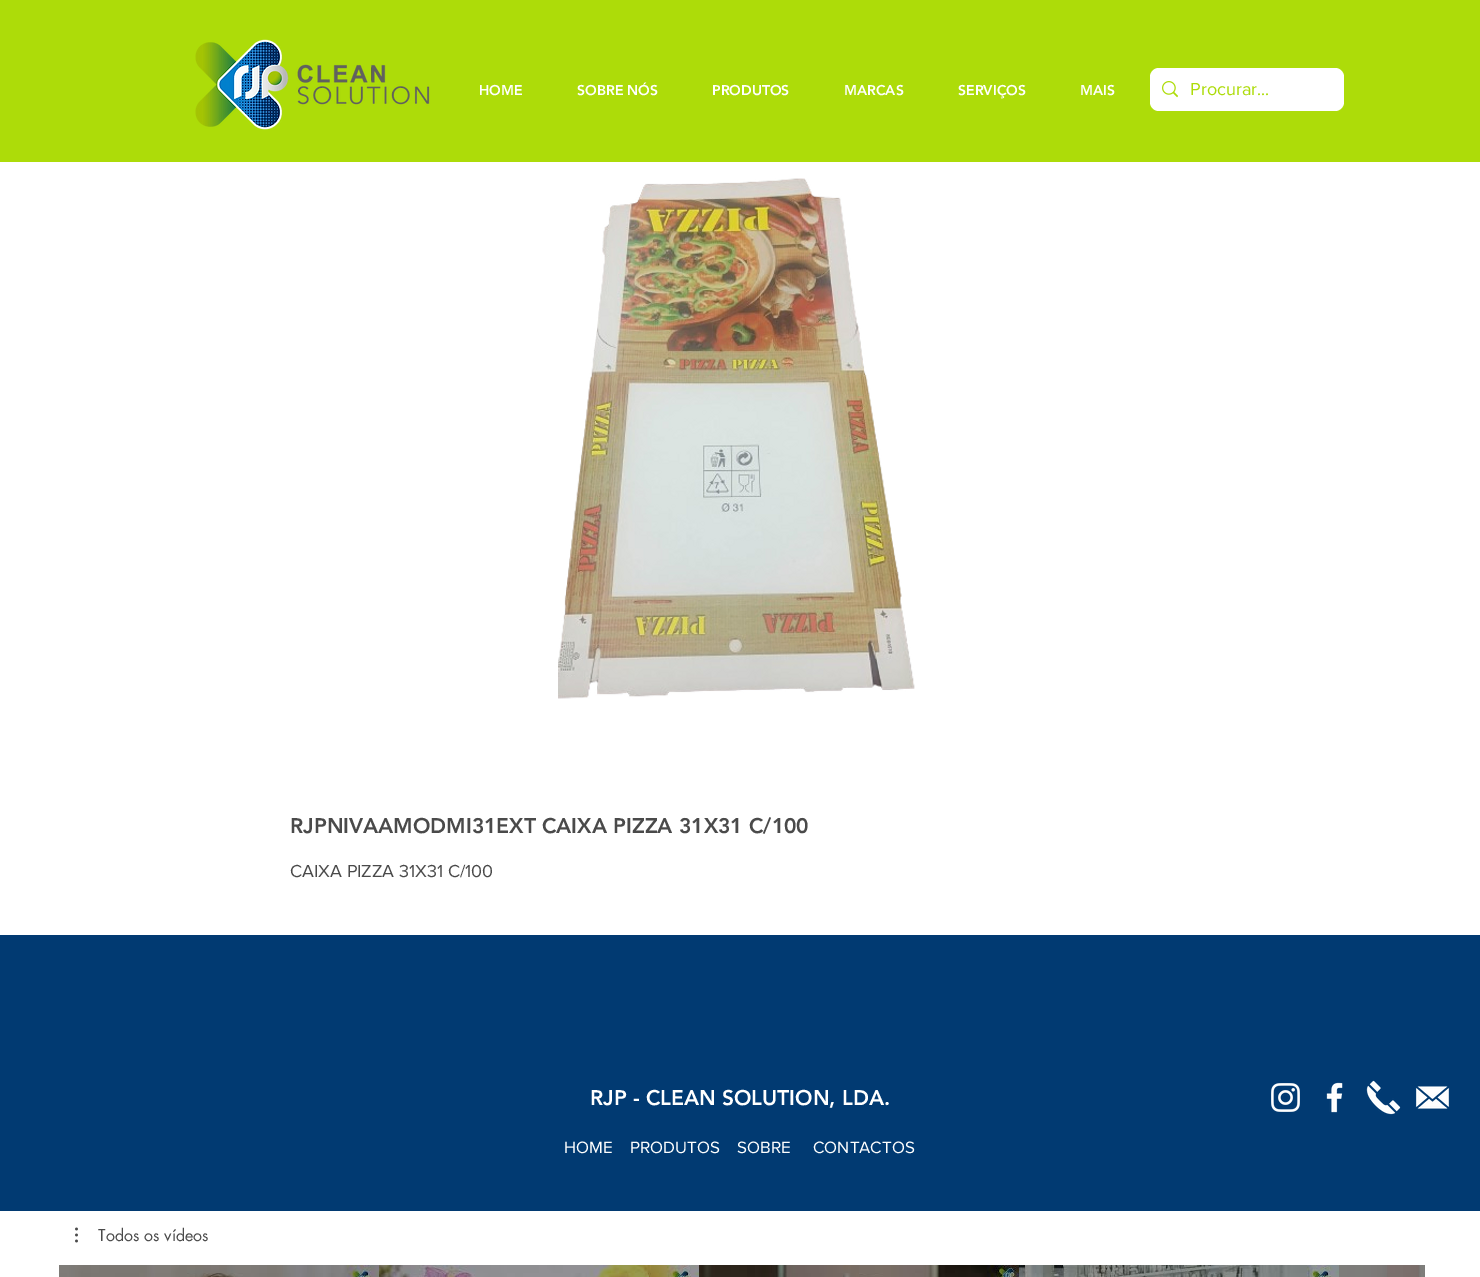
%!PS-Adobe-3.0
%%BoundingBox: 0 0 1480 1277
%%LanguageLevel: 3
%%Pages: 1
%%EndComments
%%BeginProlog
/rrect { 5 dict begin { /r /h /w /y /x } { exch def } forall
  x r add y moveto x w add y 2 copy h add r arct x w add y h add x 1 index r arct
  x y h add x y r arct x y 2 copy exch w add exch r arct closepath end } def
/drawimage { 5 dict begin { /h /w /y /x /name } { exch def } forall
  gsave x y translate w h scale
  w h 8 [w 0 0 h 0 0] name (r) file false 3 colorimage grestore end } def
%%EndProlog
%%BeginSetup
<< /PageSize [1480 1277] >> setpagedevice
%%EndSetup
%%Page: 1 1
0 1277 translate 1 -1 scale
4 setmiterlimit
1 setgray
0 0 1480 1277 rectfill
0.678 0.863 0.035 setrgbcolor
0 0 1480 162 rectfill
(images/1.raw) 195 39 235 91 drawimage
1 setgray
1150 68 194 43 9 rrect fill
(images/2.raw) 1162 81 16 17 drawimage
(images/3.raw) 558 178 357 521 drawimage
0.004 0.227 0.447 setrgbcolor
0 935 1480 276 rectfill
(images/4.raw) 1271 1083 29 29 drawimage
(images/5.raw) 1326 1082 17 31 drawimage
(images/6.raw) 1366 1080 35 35 drawimage
(images/7.raw) 1415 1086 35 23 drawimage
(images/8.raw) 75 1227 3 16 drawimage
(images/9.raw) 59 1265 320 12 drawimage
(images/10.raw) 379 1265 320 12 drawimage
(images/11.raw) 699 1265 320 12 drawimage
(images/12.raw) 1019 1265 320 12 drawimage
(images/13.raw) 1339 1265 86 12 drawimage
/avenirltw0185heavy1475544-Black [14 0 0 -14 0 0] selectfont
1 setgray
479 95 moveto (HOME) show
577 95 moveto (SOBRE NÓS) show
712 95 moveto (PRODUTOS) show
844 95 moveto (MARCAS) show
958 95 moveto (SERVIÇOS) show
1080 95 moveto (MAIS) show
/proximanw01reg-Regular [18 0 0 -18 0 0] selectfont
0.678 0.863 0.035 setrgbcolor
1190 95 moveto (Procurar...) show
/avenirltw0185heavy1475544-Black [21 0 0 -21 0 0] selectfont
0.29 setgray
290 833 moveto (RJPNIVAAMODMI31EXT CAIXA PIZZA 31X31 C/100) show
/proximanw01reg-Regular [18 0 0 -18 0 0] selectfont
290 877 moveto (CAIXA PIZZA 31X31 C/100) show
/avenirltw0185heavy1475544-Black [21 0 0 -21 0 0] selectfont
1 setgray
590 1105 moveto (RJP - CLEAN SOLUTION, LDA.) show
/proximanw01reg-Regular [17 0 0 -17 0 0] selectfont
564 1153 moveto (HOME) show
630 1153 moveto (PRODUTOS) show
737 1153 moveto (SOBRE) show
813 1153 moveto (CONTACTOS) show
/futura-Regular [16 0 0 -16 0 0] selectfont
0.29 setgray
98 1241 moveto (Todos os vídeos) show
showpage
%%EOF
